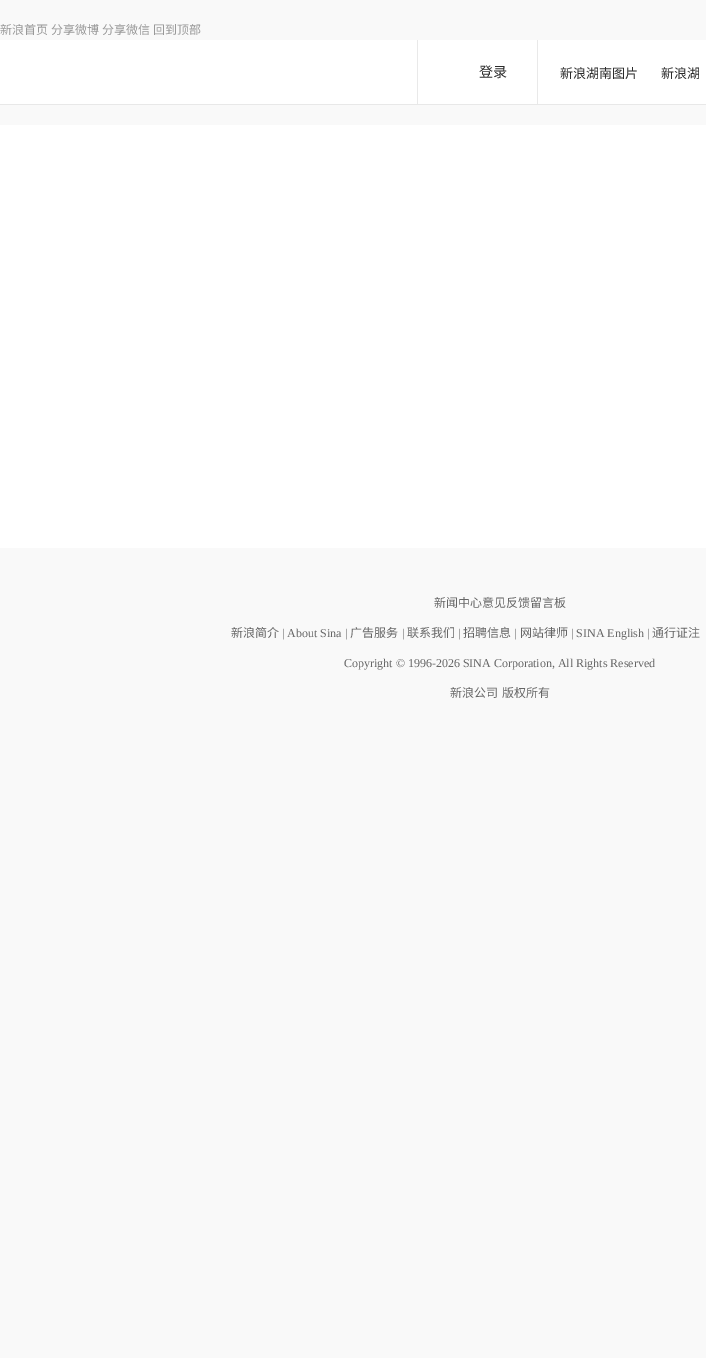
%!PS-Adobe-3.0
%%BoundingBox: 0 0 706 1358
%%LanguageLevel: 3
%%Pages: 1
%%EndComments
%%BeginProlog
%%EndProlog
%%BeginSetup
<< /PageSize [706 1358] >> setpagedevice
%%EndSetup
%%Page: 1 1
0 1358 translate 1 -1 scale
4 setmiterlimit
0.976 setgray
0 0 706 1358 rectfill
1 setgray
0 40 706 64 rectfill
0.91 setgray
0 104 706 1 rectfill
0.914 setgray
537 40 1 64 rectfill
417 40 1 64 rectfill
1 setgray
0 125 706 423 rectfill
/NotoSansCJKSC-Regular [12 0 0 -12 0 0] selectfont
0.6 setgray
0 34 moveto (新浪首页) show
51 34 moveto (分享微博) show
102 34 moveto (分享微信) show
153 34 moveto (回到顶部) show
/NotoSansCJKSC-Regular [14 0 0 -14 0 0] selectfont
0.173 setgray
479 77 moveto (登录) show
/NotoSansCJKSC-Regular [13 0 0 -13 0 0] selectfont
560 78 moveto (新浪湖南图片) show
661 78 moveto (新浪湖) show
/NotoSansCJKSC-Regular [12 0 0 -12 0 0] selectfont
0.4 setgray
434 607 moveto (新闻中心意见反馈留言板) show
231 637 moveto (新浪简介) show
/LiberationSerif-Regular [12 0 0 -12 0 0] selectfont
282 637 moveto (| About Sina |) show
/NotoSansCJKSC-Regular [12 0 0 -12 0 0] selectfont
350 637 moveto (广告服务) show
/LiberationSerif-Regular [12 0 0 -12 0 0] selectfont
402 637 moveto (|) show
/NotoSansCJKSC-Regular [12 0 0 -12 0 0] selectfont
407 637 moveto (联系我们) show
/LiberationSerif-Regular [12 0 0 -12 0 0] selectfont
458 637 moveto (|) show
/NotoSansCJKSC-Regular [12 0 0 -12 0 0] selectfont
463 637 moveto (招聘信息) show
/LiberationSerif-Regular [12 0 0 -12 0 0] selectfont
514 637 moveto (|) show
/NotoSansCJKSC-Regular [12 0 0 -12 0 0] selectfont
520 637 moveto (网站律师) show
/LiberationSerif-Regular [12 0 0 -12 0 0] selectfont
571 637 moveto (| SINA English |) show
/NotoSansCJKSC-Regular [12 0 0 -12 0 0] selectfont
652 637 moveto (通行证注) show
/LiberationSerif-Regular [12 0 0 -12 0 0] selectfont
344 667 moveto (Copyright © 1996-2026 SINA Corporation, All Rights Reserved) show
/NotoSansCJKSC-Regular [12 0 0 -12 0 0] selectfont
450 697 moveto (新浪公司) show
502 697 moveto (版权所有) show
showpage
%%EOF
